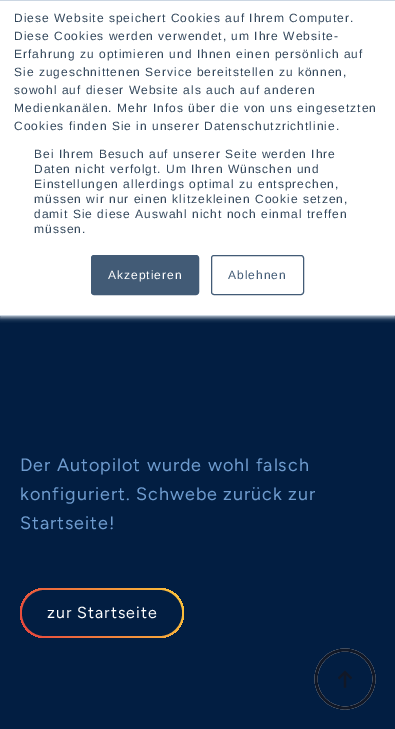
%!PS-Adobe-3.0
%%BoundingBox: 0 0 395 729
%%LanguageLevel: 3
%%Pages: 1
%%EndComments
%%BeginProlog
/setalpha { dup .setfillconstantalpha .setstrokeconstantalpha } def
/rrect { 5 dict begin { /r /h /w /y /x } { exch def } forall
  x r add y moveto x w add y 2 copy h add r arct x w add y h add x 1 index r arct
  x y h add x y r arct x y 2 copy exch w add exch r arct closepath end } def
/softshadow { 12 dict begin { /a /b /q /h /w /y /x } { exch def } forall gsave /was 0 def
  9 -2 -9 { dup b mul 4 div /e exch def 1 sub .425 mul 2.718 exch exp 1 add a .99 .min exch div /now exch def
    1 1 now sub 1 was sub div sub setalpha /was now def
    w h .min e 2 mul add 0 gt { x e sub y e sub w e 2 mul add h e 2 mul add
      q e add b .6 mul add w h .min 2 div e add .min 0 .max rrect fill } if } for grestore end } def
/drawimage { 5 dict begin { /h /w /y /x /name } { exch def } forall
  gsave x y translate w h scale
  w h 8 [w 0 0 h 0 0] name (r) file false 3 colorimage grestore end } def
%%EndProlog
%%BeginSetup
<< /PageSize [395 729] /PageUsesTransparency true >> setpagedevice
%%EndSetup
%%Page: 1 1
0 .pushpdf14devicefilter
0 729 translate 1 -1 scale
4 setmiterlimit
0.008 0.118 0.259 setrgbcolor
0 0 395 729 rectfill
0.918 0.941 0.965 setrgbcolor
0 1 395 316 0 2.5 1 softshadow
1 setgray
0 1 395 314 rectfill
0.796 0.839 0.886 setrgbcolor
0 0 395 1 rectfill
0 315 395 1 rectfill
0.259 0.357 0.463 setrgbcolor
91.5 255.5 107 39 2.5 rrect gsave fill grestore
stroke
211.5 255.5 92 39 2.5 rrect stroke
gsave 20 588 164 50 25 rrect clip newpath
<< /ShadingType 2 /ColorSpace /DeviceRGB /Coords [30 655 174 571] /Extend [true true] /Function << /FunctionType 2 /Domain [0 1] /C0 [0.906 0.267 0.243] /C1 [0.992 0.78 0.231] /N 1 >> >> shfill grestore
0.008 0.118 0.259 setrgbcolor
22 590 160 46 23 rrect fill
(images/1.raw) 338 670 14 18 drawimage
0.898 0.906 0.922 setrgbcolor
2.9 setlinewidth
1 setlinecap
newpath 345 650 moveto 361 650 374 663 374 679 curveto 374 695 361 708 345 708 curveto 329 708 316 695 316 679 curveto 316 663 329 650 345 650 curveto stroke
0.067 0.094 0.153 setrgbcolor
newpath 345 650 moveto 361 650 374 663 374 679 curveto 374 695 361 708 345 708 curveto 329 708 316 695 316 679 curveto 316 663 329 650 345 650 curveto stroke
/LiberationSans-Regular [12 0 0 -12 0 0] selectfont
0.2 0.278 0.357 setrgbcolor
14 22 moveto 1 0 (Diese Website speichert Cookies auf Ihrem Computer.) ashow
14 40 moveto 1 0 (Diese Cookies werden verwendet, um Ihre Website-) ashow
14 58 moveto 1 0 (Erfahrung zu optimieren und Ihnen einen persönlich auf) ashow
14 76 moveto 1 0 (Sie zugeschnittenen Service bereitstellen zu können,) ashow
14 94 moveto 1 0 (sowohl auf dieser Website als auch auf anderen) ashow
14 112 moveto 1 0 (Medienkanälen. Mehr Infos über die von uns eingesetzten) ashow
14 130 moveto 1 0 (Cookies finden Sie in unserer Datenschutzrichtlinie.) ashow
34 158 moveto 1 0 (Bei Ihrem Besuch auf unserer Seite werden Ihre) ashow
34 173 moveto 1 0 (Daten nicht verfolgt. Um Ihren Wünschen und) ashow
34 188 moveto 1 0 (Einstellungen allerdings optimal zu entsprechen,) ashow
34 203 moveto 1 0 (müssen wir nur einen klitzekleinen Cookie setzen,) ashow
34 218 moveto 1 0 (damit Sie diese Auswahl nicht noch einmal treffen) ashow
34 233 moveto 1 0 (müssen.) ashow
1 setgray
108 279 moveto 1 0 (Akzeptieren) ashow
0.259 0.357 0.463 setrgbcolor
228 279 moveto 1 0 (Ablehnen) ashow
/Figtree-Regular [18 0 0 -18 0 0] selectfont
0.435 0.612 0.812 setrgbcolor
20 471 moveto 1 0 (Der Autopilot wurde wohl falsch) ashow
20 500 moveto 1 0 (konfiguriert. Schwebe zurück zur) ashow
20 529 moveto 1 0 (Startseite!) ashow
/Figtree-Regular [16 0 0 -16 0 0] selectfont
1 setgray
47 618 moveto 1 0 (zur Startseite) ashow
.poppdf14devicefilter showpage
%%EOF
